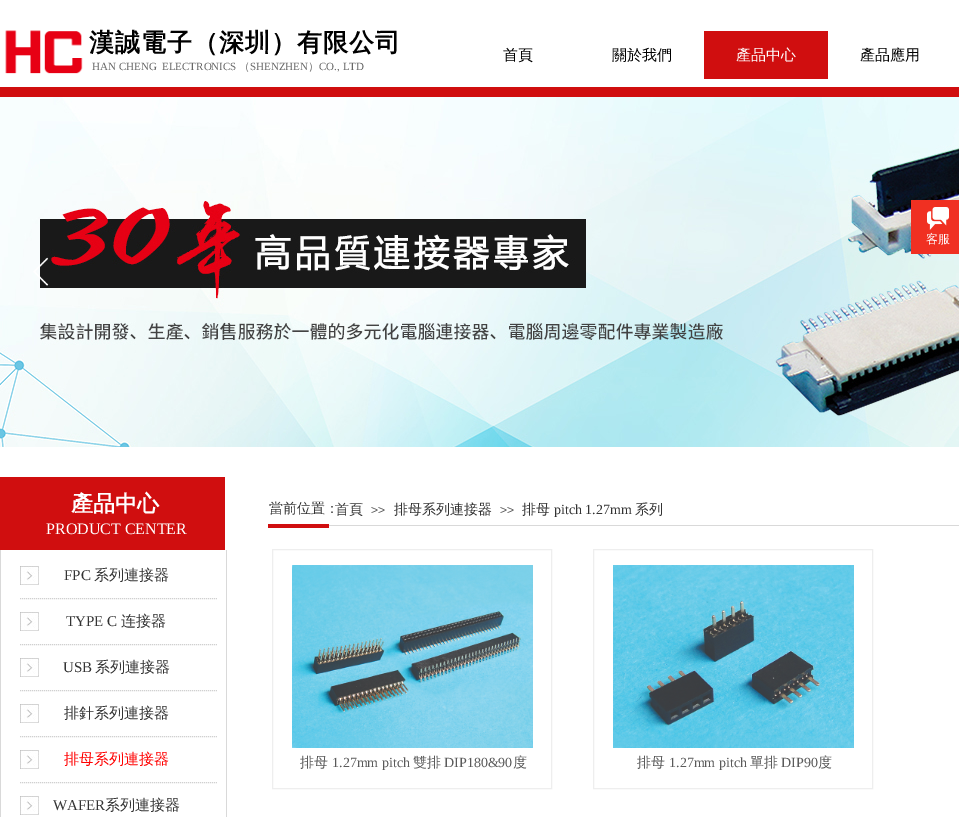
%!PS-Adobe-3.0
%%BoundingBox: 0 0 959 817
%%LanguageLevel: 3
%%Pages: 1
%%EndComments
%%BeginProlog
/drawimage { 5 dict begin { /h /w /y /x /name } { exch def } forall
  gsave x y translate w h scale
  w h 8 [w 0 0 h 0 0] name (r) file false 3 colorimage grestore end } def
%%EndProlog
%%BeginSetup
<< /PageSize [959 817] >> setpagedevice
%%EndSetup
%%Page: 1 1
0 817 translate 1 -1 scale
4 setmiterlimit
1 setgray
0 0 959 817 rectfill
(images/1.raw) 5 30 78 44 drawimage
0.816 0.055 0.059 setrgbcolor
704 31 124 48 rectfill
0 87 959 10 rectfill
(images/2.raw) 0 97 959 350 drawimage
(images/3.raw) 33 257 16 29 drawimage
0 477 225 73 rectfill
0.851 setgray
226 550 1 267 rectfill
0 550 1 267 rectfill
(images/4.raw) 20 566 19 19 drawimage
0.816 setgray
[1 1] 0 setdash
newpath 20 598.5 moveto 217 598.5 lineto stroke
(images/4.raw) 20 612 19 19 drawimage
newpath 20 644.5 moveto 217 644.5 lineto stroke
(images/4.raw) 20 658 19 19 drawimage
newpath 20 690.5 moveto 217 690.5 lineto stroke
(images/4.raw) 20 704 19 19 drawimage
newpath 20 736.5 moveto 217 736.5 lineto stroke
(images/4.raw) 20 750 19 19 drawimage
newpath 20 782.5 moveto 217 782.5 lineto stroke
(images/4.raw) 20 796 19 19 drawimage
0.816 0.055 0.059 setrgbcolor
268 524 61 4 rectfill
0.851 setgray
329 525 630 1 rectfill
0.933 setgray
[] 0 setdash
272.5 549.5 279 239 rectstroke
(images/5.raw) 292 565 241 183 drawimage
593.5 549.5 279 239 rectstroke
(images/6.raw) 613 565 241 183 drawimage
0.941 0.188 0.133 setrgbcolor
911 200 48 54 rectfill
(images/7.raw) 927 207 22 23 drawimage
/WenQuanYiZenHei-Bold [25 0 0 -25 0 0] selectfont
0 setgray
89 51 moveto 1 0 (漢誠電子（深圳）有限公司) ashow
/WenQuanYiZenHei-Medium [15 0 0 -15 0 0] selectfont
503 60 moveto (首頁) show
612 60 moveto (關於我們) show
1 setgray
736 60 moveto (產品中心) show
0 setgray
860 60 moveto (產品應用) show
/LiberationSerif-Regular [11 0 0 -11 0 0] selectfont
0.4 setgray
92 70 moveto (HAN CHENG  ELECTRONICS) show
/WenQuanYiZenHei-Medium [11 0 0 -11 0 0] selectfont
239 70 moveto (（) show
/LiberationSerif-Regular [11 0 0 -11 0 0] selectfont
250 70 moveto (SHENZHEN) show
/WenQuanYiZenHei-Medium [11 0 0 -11 0 0] selectfont
308 70 moveto (）) show
/LiberationSerif-Regular [11 0 0 -11 0 0] selectfont
319 70 moveto (CO., LTD) show
/WenQuanYiZenHei-Bold [22 0 0 -22 0 0] selectfont
1 setgray
71 511 moveto (產品中心) show
/LiberationSerif-Regular [16 0 0 -16 0 0] selectfont
46 534 moveto (PRODUCT CENTER) show
/LiberationSerif-Regular [15 0 0 -15 0 0] selectfont
0.2 setgray
64 580 moveto (FPC) show
/WenQuanYiZenHei-Medium [15 0 0 -15 0 0] selectfont
94 580 moveto (系列連接器) show
/LiberationSerif-Regular [15 0 0 -15 0 0] selectfont
66 626 moveto (TYPE C) show
/WenQuanYiZenHei-Medium [15 0 0 -15 0 0] selectfont
121 626 moveto (连接器) show
/LiberationSerif-Regular [15 0 0 -15 0 0] selectfont
63 672 moveto (USB) show
/WenQuanYiZenHei-Medium [15 0 0 -15 0 0] selectfont
95 672 moveto (系列連接器) show
64 718 moveto (排針系列連接器) show
1 0 0 setrgbcolor
64 764 moveto (排母系列連接器) show
/LiberationSerif-Regular [15 0 0 -15 0 0] selectfont
0.2 setgray
53 810 moveto (WAFER) show
/WenQuanYiZenHei-Medium [15 0 0 -15 0 0] selectfont
105 810 moveto (系列連接器) show
/WenQuanYiZenHei-Medium [14 0 0 -14 0 0] selectfont
269 513 moveto (當前位置：) show
335 514 moveto (首頁) show
/LiberationSans-Regular [12 0 0 -12 0 0] selectfont
0.353 setgray
371 514 moveto (>>) show
/WenQuanYiZenHei-Medium [14 0 0 -14 0 0] selectfont
0.2 setgray
394 514 moveto (排母系列連接器) show
/LiberationSans-Regular [12 0 0 -12 0 0] selectfont
0.353 setgray
500 514 moveto (>>) show
/WenQuanYiZenHei-Medium [14 0 0 -14 0 0] selectfont
0.2 setgray
522 514 moveto (排母) show
/LiberationSerif-Regular [14 0 0 -14 0 0] selectfont
554 514 moveto (pitch 1.27mm) show
/WenQuanYiZenHei-Medium [14 0 0 -14 0 0] selectfont
635 514 moveto (系列) show
0.353 setgray
300 767 moveto (排母) show
/LiberationSerif-Regular [14 0 0 -14 0 0] selectfont
332 767 moveto (1.27mm pitch) show
/WenQuanYiZenHei-Medium [14 0 0 -14 0 0] selectfont
413 767 moveto (雙排) show
/LiberationSerif-Regular [14 0 0 -14 0 0] selectfont
444 767 moveto (DIP180&90) show
/WenQuanYiZenHei-Medium [14 0 0 -14 0 0] selectfont
513 767 moveto (度) show
637 767 moveto (排母) show
/LiberationSerif-Regular [14 0 0 -14 0 0] selectfont
669 767 moveto (1.27mm pitch) show
/WenQuanYiZenHei-Medium [14 0 0 -14 0 0] selectfont
750 767 moveto (單排) show
/LiberationSerif-Regular [14 0 0 -14 0 0] selectfont
781 767 moveto (DIP90) show
/WenQuanYiZenHei-Medium [14 0 0 -14 0 0] selectfont
818 767 moveto (度) show
/WenQuanYiZenHei-Medium [12 0 0 -12 0 0] selectfont
1 setgray
926 243 moveto (客服) show
showpage
%%EOF
